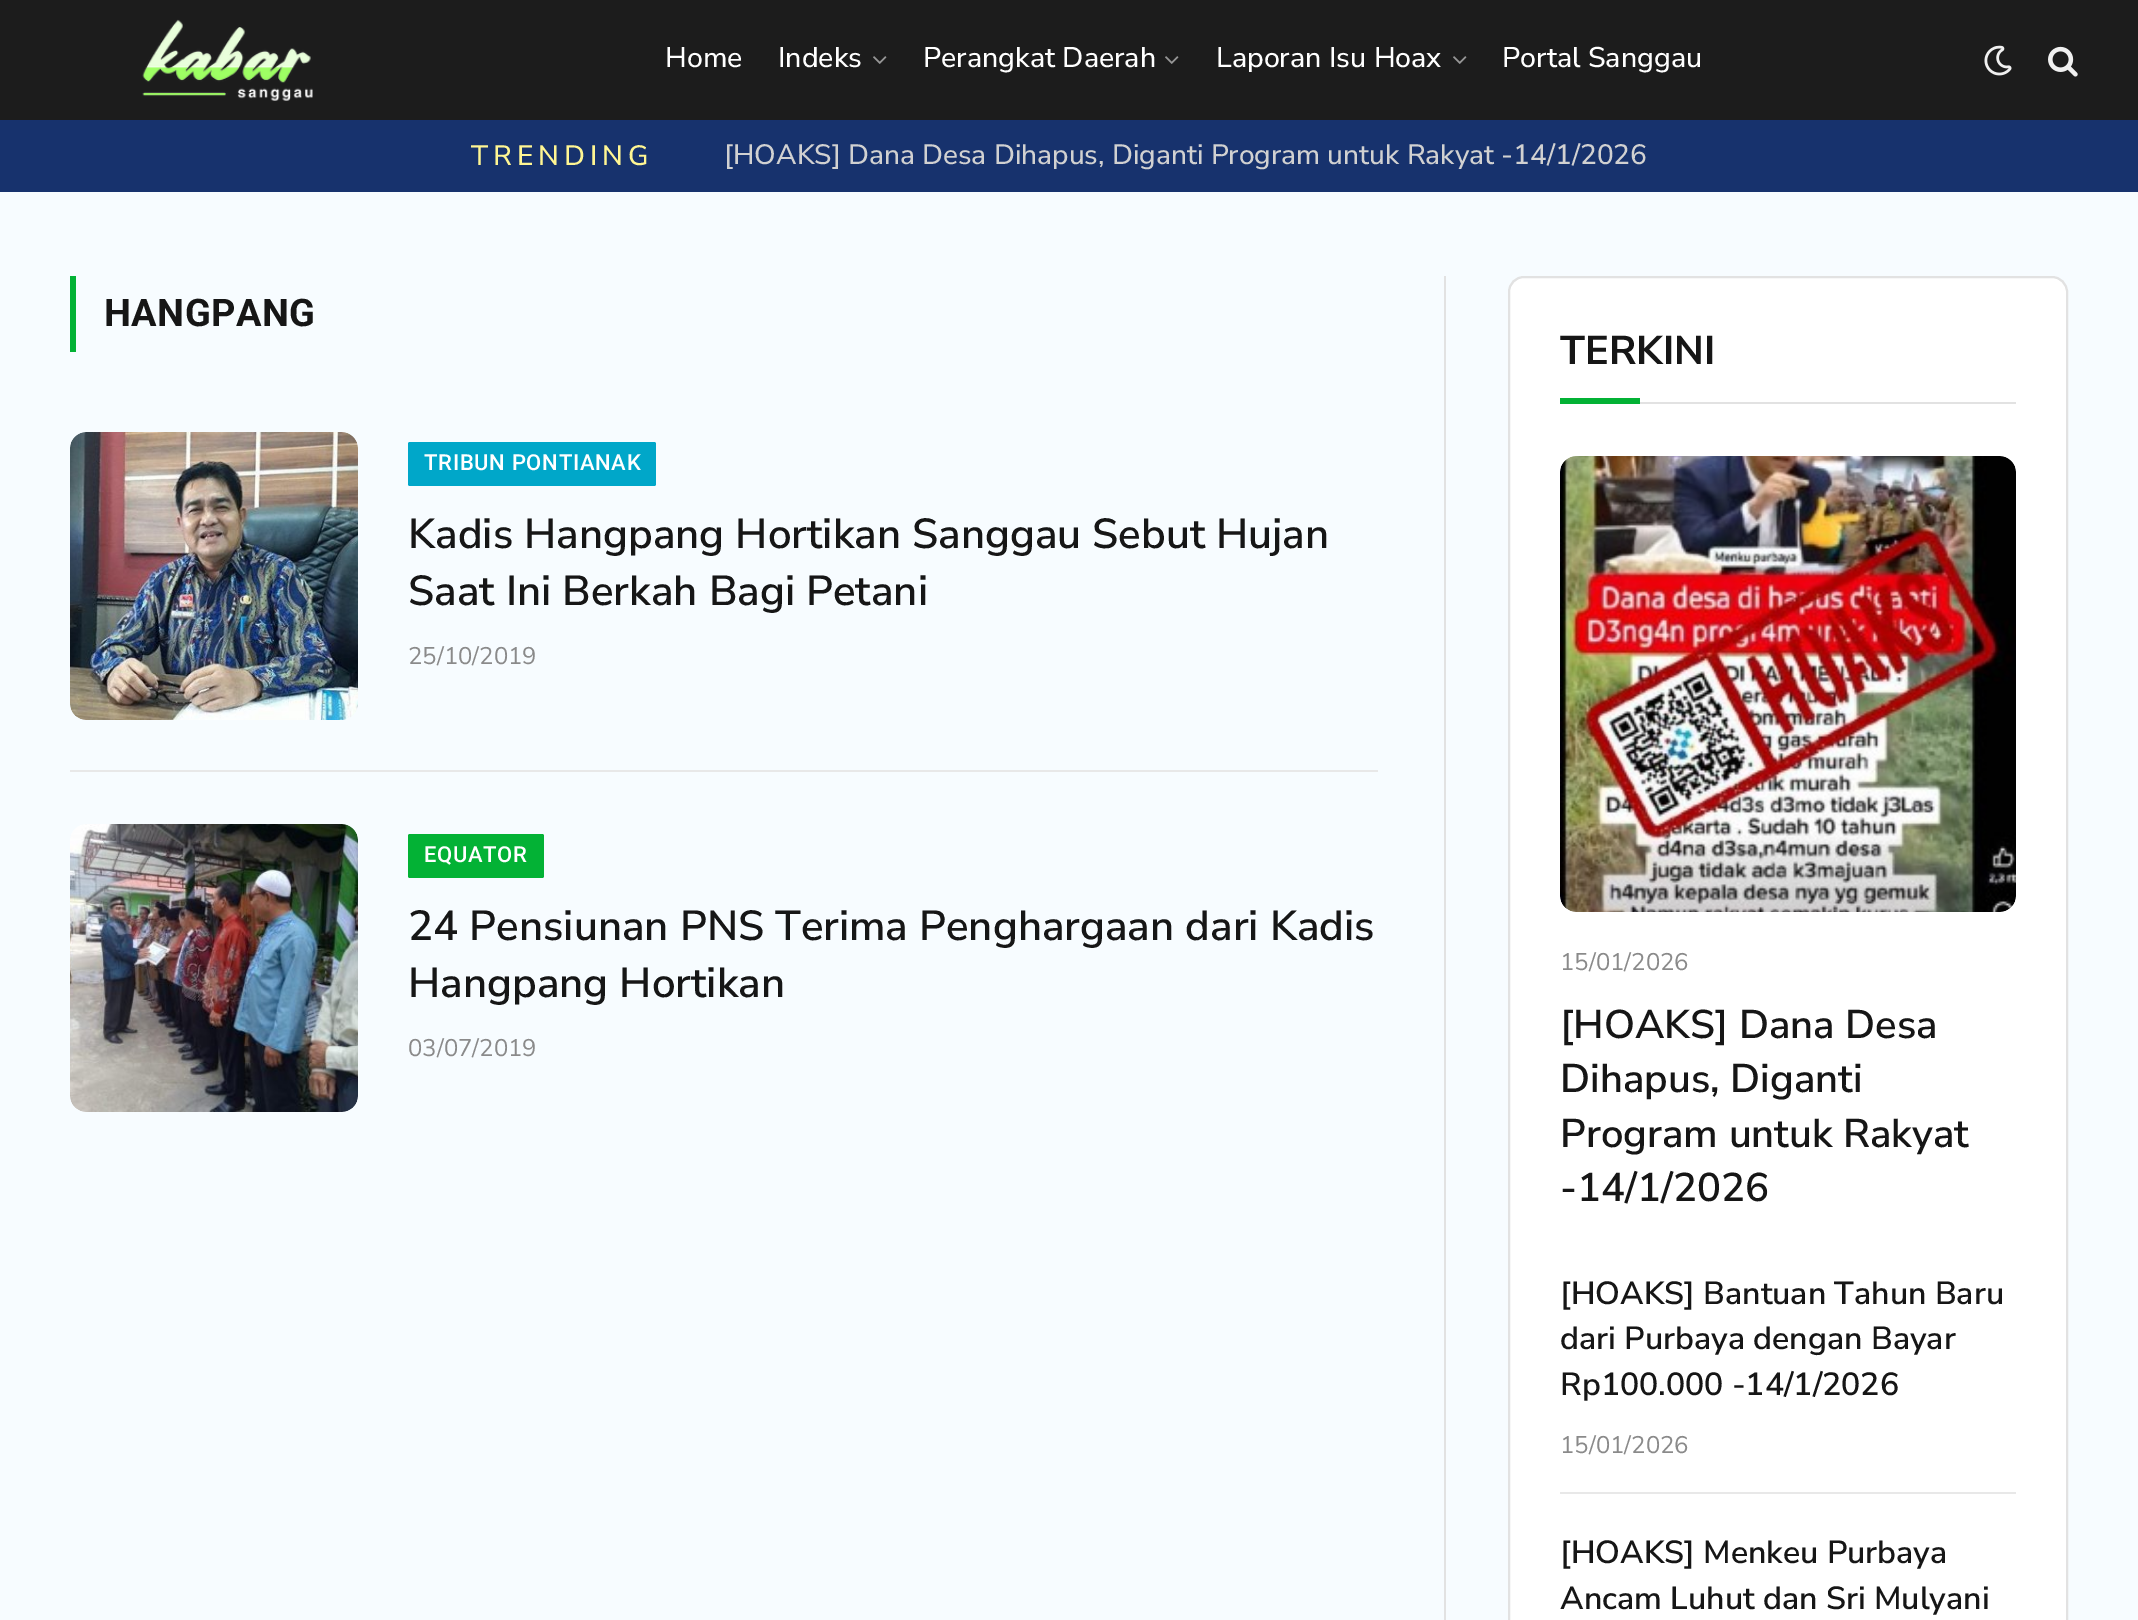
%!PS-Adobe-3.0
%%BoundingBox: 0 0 2138 1620
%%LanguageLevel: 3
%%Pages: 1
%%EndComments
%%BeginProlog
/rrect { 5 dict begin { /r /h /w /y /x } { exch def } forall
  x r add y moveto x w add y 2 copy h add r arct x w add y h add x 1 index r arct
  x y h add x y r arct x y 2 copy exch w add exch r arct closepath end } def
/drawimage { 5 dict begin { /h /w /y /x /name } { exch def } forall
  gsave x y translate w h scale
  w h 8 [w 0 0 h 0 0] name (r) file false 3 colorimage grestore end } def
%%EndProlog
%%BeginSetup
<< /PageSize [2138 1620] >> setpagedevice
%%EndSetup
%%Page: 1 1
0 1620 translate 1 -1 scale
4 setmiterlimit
0.969 0.988 1 setrgbcolor
0 0 2138 1620 rectfill
0.11 setgray
0 0 2138 120 rectfill
(images/1.raw) 142 19 171 82 drawimage
(images/2.raw) 873 56 14 8 drawimage
(images/2.raw) 1165 56 14 8 drawimage
(images/2.raw) 1453 56 14 8 drawimage
(images/3.raw) 1984 45 28 31 drawimage
(images/4.raw) 2048 46 30 31 drawimage
0.09 0.196 0.427 setrgbcolor
0 120 2138 72 rectfill
0.012 0.698 0.208 setrgbcolor
70 276 6 76 rectfill
(images/5.raw) 70 432 288 288 drawimage
0 0.655 0.788 setrgbcolor
408 442 248 44 2 rrect fill
0.91 setgray
70 770 1308 2 rectfill
(images/6.raw) 70 824 288 288 drawimage
0.012 0.698 0.208 setrgbcolor
408 834 136 44 2 rrect fill
0.886 setgray
1444 276 2 1344 rectfill
1 setgray
1509 277 558 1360 15 rrect gsave fill grestore
0.886 setgray
2 setlinewidth
stroke
1640 402 376 2 rectfill
0.012 0.698 0.208 setrgbcolor
1560 398 80 6 rectfill
(images/7.raw) 1560 456 456 456 drawimage
0.91 setgray
1560 1492 456 2 rectfill
/NunitoSans-Medium [28.5 0 0 -28.5 0 0] selectfont
1 setgray
665 67 moveto (Home) show
778 67 moveto (Indeks) show
923 67 moveto (Perangkat Daerah) show
1216 67 moveto (Laporan Isu Hoax) show
1502 67 moveto (Portal Sanggau) show
/NunitoSans-Medium [28 0 0 -28 0 0] selectfont
1 0.965 0.576 setrgbcolor
471 165 moveto 5 0 (TRENDING) ashow
0.82 setgray
724 164 moveto ([HOAKS] Dana Desa Dihapus, Diganti Program untuk Rakyat -14/1/2026) show
/Roboto-Bold [38 0 0 -38 0 0] selectfont
0.086 setgray
104 326 moveto 0.5 0 (HANGPANG) ashow
/Roboto-Medium [22 0 0 -22 0 0] selectfont
1 setgray
424 470 moveto 0.7 0 (TRIBUN PONTIANAK) ashow
/NunitoSans-SemiBold [42 0 0 -42 0 0] selectfont
0.086 setgray
408 548 moveto (Kadis Hangpang Hortikan Sanggau Sebut Hujan) show
408 605 moveto (Saat Ini Berkah Bagi Petani) show
/NunitoSans-Regular [24 0 0 -24 0 0] selectfont
0.541 setgray
408 664 moveto (25/10/2019) show
/Roboto-Medium [22 0 0 -22 0 0] selectfont
1 setgray
424 862 moveto 0.7 0 (EQUATOR) ashow
/NunitoSans-SemiBold [42 0 0 -42 0 0] selectfont
0.086 setgray
408 940 moveto (24 Pensiunan PNS Terima Penghargaan dari Kadis) show
408 997 moveto (Hangpang Hortikan) show
/NunitoSans-Regular [24 0 0 -24 0 0] selectfont
0.541 setgray
408 1056 moveto (03/07/2019) show
/NunitoSans-Bold [40 0 0 -40 0 0] selectfont
0.086 setgray
1560 364 moveto (TERKINI) show
/NunitoSans-Regular [24 0 0 -24 0 0] selectfont
0.541 setgray
1560 970 moveto (15/01/2026) show
/NunitoSans-SemiBold [40 0 0 -40 0 0] selectfont
0.086 setgray
1560 1038 moveto ([HOAKS] Dana Desa) show
1560 1092 moveto (Dihapus, Diganti) show
1560 1147 moveto (Program untuk Rakyat) show
1560 1201 moveto (-14/1/2026) show
/NunitoSans-SemiBold [32 0 0 -32 0 0] selectfont
1560 1304 moveto ([HOAKS] Bantuan Tahun Baru) show
1560 1349 moveto (dari Purbaya dengan Bayar) show
1560 1395 moveto (Rp100.000 -14/1/2026) show
/NunitoSans-Regular [24 0 0 -24 0 0] selectfont
0.541 setgray
1560 1453 moveto (15/01/2026) show
/NunitoSans-SemiBold [32 0 0 -32 0 0] selectfont
0.086 setgray
1560 1563 moveto ([HOAKS] Menkeu Purbaya) show
1560 1609 moveto (Ancam Luhut dan Sri Mulyani) show
showpage
%%EOF
